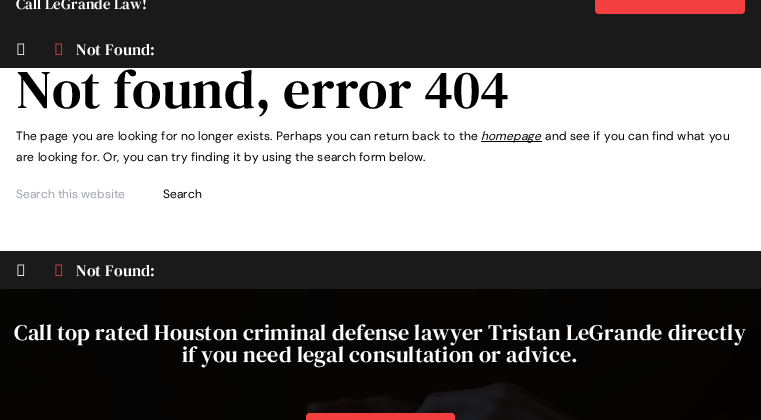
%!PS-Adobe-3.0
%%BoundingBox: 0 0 761 420
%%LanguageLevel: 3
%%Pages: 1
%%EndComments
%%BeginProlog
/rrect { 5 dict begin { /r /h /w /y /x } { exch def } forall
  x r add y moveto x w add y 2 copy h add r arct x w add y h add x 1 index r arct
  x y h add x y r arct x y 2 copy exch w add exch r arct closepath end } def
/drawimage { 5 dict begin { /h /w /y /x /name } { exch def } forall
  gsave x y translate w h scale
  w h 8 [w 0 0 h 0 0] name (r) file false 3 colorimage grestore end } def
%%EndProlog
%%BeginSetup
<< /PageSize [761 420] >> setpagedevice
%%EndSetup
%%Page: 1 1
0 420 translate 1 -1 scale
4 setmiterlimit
1 setgray
0 0 761 420 rectfill
0.102 setgray
0 0 761 68 rectfill
0.953 0.247 0.247 setrgbcolor
595 -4 150 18 4 rrect fill
(images/1.raw) 17 43 8 12 drawimage
(images/2.raw) 55 43 8 12 drawimage
0 setgray
481 141 61 1 rectfill
0.102 setgray
0 251 761 38 rectfill
(images/1.raw) 17 264 8 12 drawimage
(images/2.raw) 55 264 8 12 drawimage
(images/3.raw) 0 289 761 131 drawimage
0.953 0.247 0.247 setrgbcolor
306 413 149 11 4 rrect fill
/DMSerifText-Regular [15 0 0 -15 0 0] selectfont
1 setgray
16 9 moveto 0.15 0 (Call LeGrande Law!) ashow
/DMSerifText-Regular [16 0 0 -16 0 0] selectfont
76 55 moveto 0.15 0 (Not Found:) ashow
/DMSerifText-Regular [54.4 0 0 -54.4 0 0] selectfont
0 setgray
16 108 moveto 0.15 0 (Not found, error 404) ashow
/DMSans-Regular [12 0 0 -12 0 0] selectfont
16 140 moveto 0.15 0 (The page you are looking for no longer exists. Perhaps you can return back to the) ashow
/DMSans-Italic [12 0 0 -12 0 0] selectfont
481 140 moveto 0.15 0 (homepage) ashow
/DMSans-Regular [12 0 0 -12 0 0] selectfont
545 140 moveto 0.15 0 (and see if you can find what you) ashow
16 161 moveto 0.15 0 (are looking for. Or, you can try finding it by using the search form below.) ashow
0.612 0.639 0.686 setrgbcolor
16 198 moveto (Search this website) show
0 setgray
163 198 moveto (Search) show
/DMSerifText-Regular [16 0 0 -16 0 0] selectfont
1 setgray
76 276 moveto 0.15 0 (Not Found:) ashow
/DMSerifText-Regular [22.3 0 0 -22.3 0 0] selectfont
14 340 moveto 0.15 0 (Call top rated Houston criminal defense lawyer Tristan LeGrande directly) ashow
182 362 moveto 0.15 0 (if you need legal consultation or advice.) ashow
showpage
%%EOF
